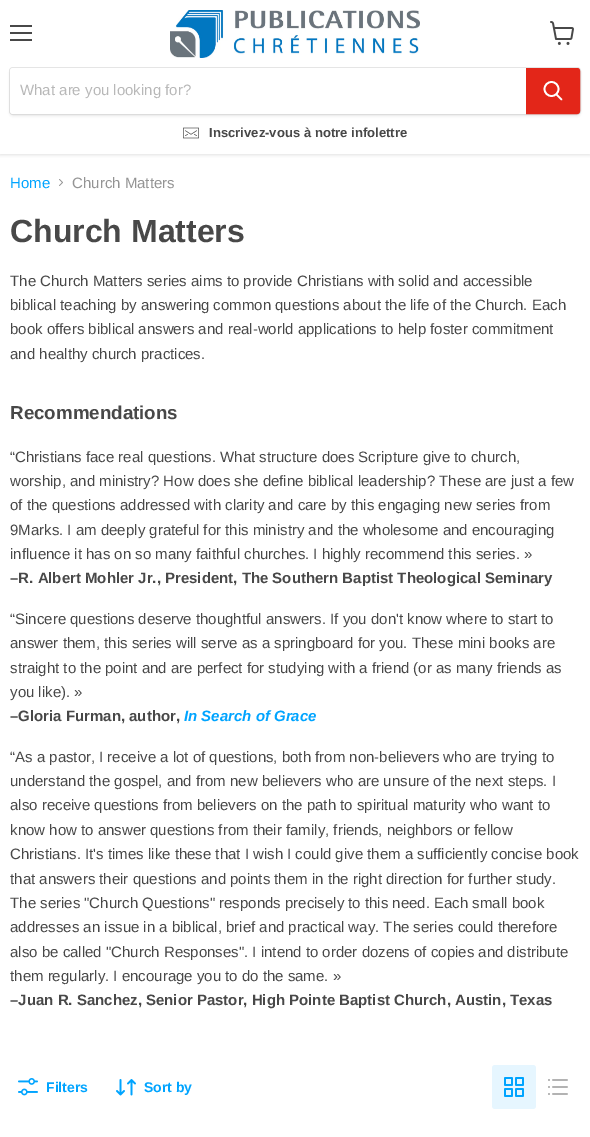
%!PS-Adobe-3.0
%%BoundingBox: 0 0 590 1137
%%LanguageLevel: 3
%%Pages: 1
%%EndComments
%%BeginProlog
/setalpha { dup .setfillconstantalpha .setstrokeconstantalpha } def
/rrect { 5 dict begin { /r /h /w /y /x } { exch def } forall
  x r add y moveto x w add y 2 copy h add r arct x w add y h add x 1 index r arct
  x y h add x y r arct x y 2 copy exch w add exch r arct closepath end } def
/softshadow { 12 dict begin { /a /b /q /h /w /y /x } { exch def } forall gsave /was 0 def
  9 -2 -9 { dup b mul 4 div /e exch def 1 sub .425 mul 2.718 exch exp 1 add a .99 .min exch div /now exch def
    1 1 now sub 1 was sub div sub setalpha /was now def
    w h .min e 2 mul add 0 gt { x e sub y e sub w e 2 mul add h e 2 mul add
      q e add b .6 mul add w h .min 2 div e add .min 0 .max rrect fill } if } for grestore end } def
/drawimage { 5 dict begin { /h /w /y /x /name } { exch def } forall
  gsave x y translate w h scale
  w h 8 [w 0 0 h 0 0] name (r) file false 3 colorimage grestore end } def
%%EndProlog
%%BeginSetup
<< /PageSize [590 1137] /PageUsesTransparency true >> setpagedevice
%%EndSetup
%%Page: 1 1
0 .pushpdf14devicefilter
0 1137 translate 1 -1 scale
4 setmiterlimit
1 setgray
0 0 590 1137 rectfill
gsave
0 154 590 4 rectclip
0.502 setgray
0 1 590 154 0 2 0.25 softshadow
grestore
0.282 setgray
10 25 22 2 rectfill
10 32 22 2 rectfill
10 39 22 2 rectfill
(images/1.raw) 550 21 24 24 drawimage
(images/2.raw) 170 10 250 48 drawimage
0.502 setgray
9 69 572 48 4 1.5 0.11 softshadow
0.2 setalpha
9.5 67.5 571 47 3.5 rrect stroke
1 setalpha
1 setgray
newpath 13 68 moveto 526 68 lineto 526 114 lineto 13 114 lineto 11.5 114 10 112.5 10 111 curveto 10 71 lineto 10 69.5 11.5 68 13 68 curveto closepath fill
0.89 0.149 0.098 setrgbcolor
newpath 526.5 68.5 moveto 577 68.5 lineto 578.5 68.5 579.5 69.5 579.5 71 curveto 579.5 111 lineto 579.5 112.5 578.5 113.5 577 113.5 curveto 526.5 113.5 lineto closepath gsave fill grestore
stroke
1 setgray
1.7 setlinewidth
1 setlinecap
newpath 561.5 99.5 moveto 556.5 94.5 lineto stroke
0 setlinecap
newpath 551.5 89 7 0 360 arc closepath stroke
(images/3.raw) 183 127 16 12 drawimage
(images/4.raw) 59 179 4 7 drawimage
(images/5.raw) 18 1078 20 18 drawimage
(images/6.raw) 116 1079 20 17 drawimage
0.902 0.965 1 setrgbcolor
492 1065 44 44 3 rrect fill
(images/7.raw) 504 1077 20 20 drawimage
(images/8.raw) 548 1079 20 16 drawimage
/LiberationSans-Regular [15 0 0 -15 0 0] selectfont
0.722 setgray
20 95 moveto (What are you looking for?) show
/LiberationSans-Bold [13.1 0 0 -13.1 0 0] selectfont
0.282 setgray
209 137 moveto (Inscrivez-vous à notre infolettre) show
/LiberationSans-Regular [15 0 0 -15 0 0] selectfont
0 0.643 1 setrgbcolor
10 188 moveto (Home) show
0.58 setgray
72 188 moveto (Church Matters) show
/LiberationSans-Bold [32 0 0 -32 0 0] selectfont
0.282 setgray
10 242 moveto (Church Matters) show
/LiberationSans-Regular [15 0 0 -15 0 0] selectfont
10 286 moveto (The Church Matters series aims to provide Christians with solid and accessible) show
10 310 moveto (biblical teaching by answering common questions about the life of the Church. Each) show
10 334 moveto (book offers biblical answers and real-world applications to help foster commitment) show
10 359 moveto (and healthy church practices.) show
/LiberationSans-Bold [18.75 0 0 -18.75 0 0] selectfont
10 419 moveto (Recommendations) show
/LiberationSans-Regular [15 0 0 -15 0 0] selectfont
10 462 moveto (“Christians face real questions. What structure does Scripture give to church,) show
10 486 moveto (worship, and ministry? How does she define biblical leadership? These are just a few) show
10 510 moveto (of the questions addressed with clarity and care by this engaging new series from) show
10 535 moveto (9Marks. I am deeply grateful for this ministry and the wholesome and encouraging) show
10 559 moveto (influence it has on so many faithful churches. I highly recommend this series. ») show
/LiberationSans-Bold [15 0 0 -15 0 0] selectfont
10 583 moveto (–R. Albert Mohler Jr., President, The Southern Baptist Theological Seminary) show
/LiberationSans-Regular [15 0 0 -15 0 0] selectfont
10 624 moveto (“Sincere questions deserve thoughtful answers. If you don't know where to start to) show
10 648 moveto (answer them, this series will serve as a springboard for you. These mini books are) show
10 673 moveto (straight to the point and are perfect for studying with a friend \(or as many friends as) show
10 697 moveto (you like\). ») show
/LiberationSans-Bold [15 0 0 -15 0 0] selectfont
10 721 moveto (–Gloria Furman, author,) show
/LiberationSans-BoldItalic [15 0 0 -15 0 0] selectfont
0 0.643 1 setrgbcolor
184 721 moveto (In Search of Grace) show
/LiberationSans-Regular [15 0 0 -15 0 0] selectfont
0.282 setgray
10 762 moveto (“As a pastor, I receive a lot of questions, both from non-believers who are trying to) show
10 786 moveto (understand the gospel, and from new believers who are unsure of the next steps. I) show
10 810 moveto (also receive questions from believers on the path to spiritual maturity who want to) show
10 835 moveto (know how to answer questions from their family, friends, neighbors or fellow) show
10 859 moveto (Christians. It's times like these that I wish I could give them a sufficiently concise book) show
10 884 moveto (that answers their questions and points them in the right direction for further study.) show
10 908 moveto (The series "Church Questions" responds precisely to this need. Each small book) show
10 932 moveto (addresses an issue in a biblical, brief and practical way. The series could therefore) show
10 957 moveto (also be called "Church Responses". I intend to order dozens of copies and distribute) show
10 981 moveto (them regularly. I encourage you to do the same. ») show
/LiberationSans-Bold [15 0 0 -15 0 0] selectfont
10 1005 moveto (–Juan R. Sanchez, Senior Pastor, High Pointe Baptist Church, Austin, Texas) show
/LiberationSans-Bold [14 0 0 -14 0 0] selectfont
0 0.643 1 setrgbcolor
46 1092 moveto (Filters) show
144 1092 moveto (Sort by) show
.poppdf14devicefilter showpage
%%EOF
